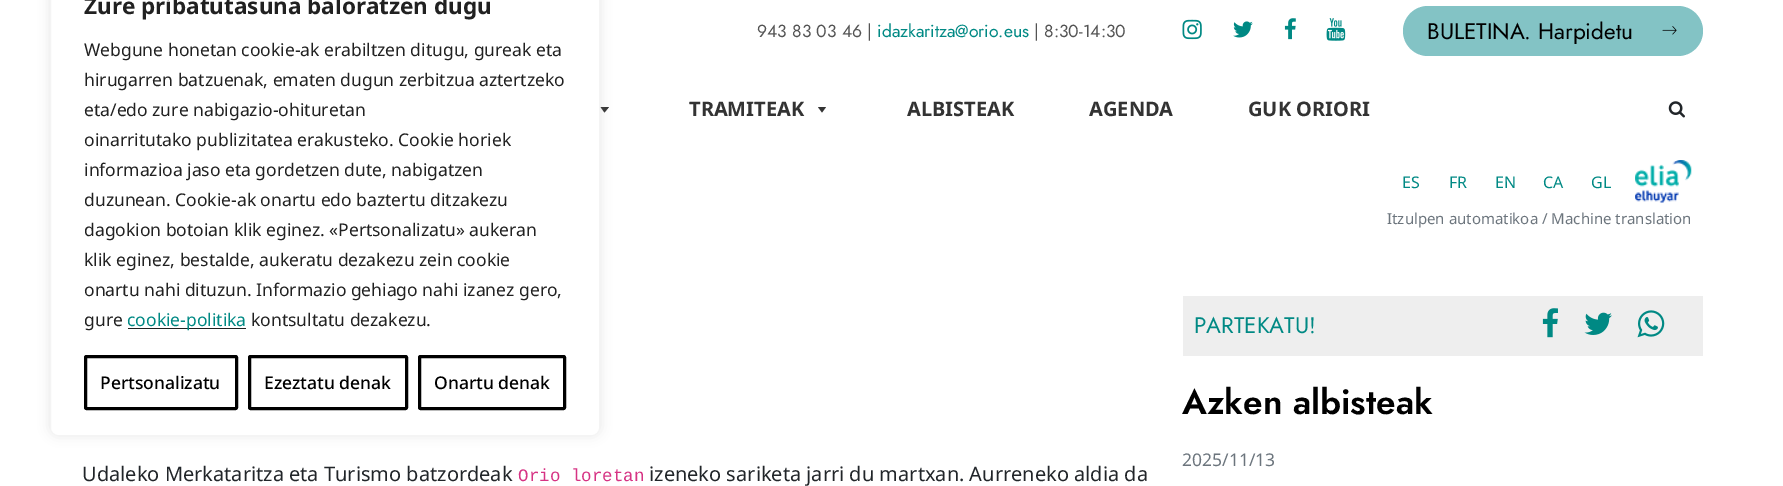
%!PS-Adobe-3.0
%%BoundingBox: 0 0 1783 486
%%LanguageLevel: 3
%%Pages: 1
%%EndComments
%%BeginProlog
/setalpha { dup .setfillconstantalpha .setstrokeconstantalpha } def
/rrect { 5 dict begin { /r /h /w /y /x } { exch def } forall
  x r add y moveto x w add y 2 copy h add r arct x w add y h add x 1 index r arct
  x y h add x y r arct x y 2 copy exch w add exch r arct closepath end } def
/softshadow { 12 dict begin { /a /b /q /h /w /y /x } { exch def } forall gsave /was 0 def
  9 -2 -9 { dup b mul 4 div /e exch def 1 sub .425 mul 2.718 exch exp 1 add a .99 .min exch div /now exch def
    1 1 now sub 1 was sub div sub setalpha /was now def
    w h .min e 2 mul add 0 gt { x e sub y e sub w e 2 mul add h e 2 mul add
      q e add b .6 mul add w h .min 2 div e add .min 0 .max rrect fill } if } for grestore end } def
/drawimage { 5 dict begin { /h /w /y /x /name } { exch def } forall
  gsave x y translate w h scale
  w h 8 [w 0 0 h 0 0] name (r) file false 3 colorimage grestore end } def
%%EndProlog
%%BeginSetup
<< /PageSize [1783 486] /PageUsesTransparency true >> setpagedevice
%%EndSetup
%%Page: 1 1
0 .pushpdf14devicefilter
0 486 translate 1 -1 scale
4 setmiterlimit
1 setgray
0 0 1783 486 rectfill
0.2 setgray
newpath 609 107 moveto 604.5 112.5 lineto 600.5 107 lineto closepath fill
0.675 0.671 0.671 setrgbcolor
50 -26 550 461 8 6 0.3 softshadow
1 setgray
50.5 -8.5 549 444 7.5 rrect gsave fill grestore
0.957 setgray
stroke
0.129 setgray
128 328 118 1 rectfill
0 setgray
3 setlinewidth
85.5 356.5 151 52 1 rrect stroke
249.5 356.5 157 52 1 rrect stroke
419.5 356.5 145 52 1 rrect stroke
(images/1.raw) 1182 19 20 21 drawimage
(images/2.raw) 1233 21 20 17 drawimage
(images/3.raw) 1284 18 12 22 drawimage
(images/4.raw) 1326 18 20 23 drawimage
0.514 0.765 0.773 setrgbcolor
1403 6 300 50 25 rrect fill
(images/5.raw) 1662 26 15 9 drawimage
0.2 setgray
newpath 826 107 moveto 822 112.5 lineto 818 107 lineto closepath fill
(images/6.raw) 1668 101 17 17 drawimage
(images/7.raw) 1635 160 57 43 drawimage
0.933 setgray
1183 296 520 60 rectfill
(images/8.raw) 1542 308 16 30 drawimage
(images/9.raw) 1584 312 28 23 drawimage
(images/10.raw) 1637 310 28 28 drawimage
/NotoSans-Bold [22.5 0 0 -22.5 0 0] selectfont
0.129 setgray
84 14 moveto (Zure pribatutasuna baloratzen dugu) show
/NotoSans-Regular [17.5 0 0 -17.5 0 0] selectfont
84 56 moveto (Webgune honetan cookie-ak erabiltzen ditugu, gureak eta) show
84 86 moveto (hirugarren batzuenak, ematen dugun zerbitzua aztertzeko) show
84 116 moveto (eta/edo zure nabigazio-ohituretan) show
84 146 moveto (oinarritutako publizitatea erakusteko. Cookie horiek) show
84 176 moveto (informazioa jaso eta gordetzen dute, nabigatzen) show
84 206 moveto (duzunean. Cookie-ak onartu edo baztertu ditzakezu) show
84 236 moveto (dagokion botoian klik eginez. «Pertsonalizatu» aukeran) show
84 266 moveto (klik eginez, bestalde, aukeratu dezakezu zein cookie) show
84 296 moveto (onartu nahi dituzun. Informazio gehiago nahi izanez gero,) show
84 326 moveto (gure) show
0 0.537 0.518 setrgbcolor
127 326 moveto (cookie-politika) show
0.129 setgray
251 326 moveto (kontsultatu dezakezu.) show
/NotoSans-Medium [17.5 0 0 -17.5 0 0] selectfont
0 setgray
100 389 moveto (Pertsonalizatu) show
264 389 moveto (Ezeztatu denak) show
434 389 moveto (Onartu denak) show
/Jost-Regular [17.5 0 0 -17.5 0 0] selectfont
0.329 setgray
757 37 moveto (943 83 03 46 |) show
0 0.537 0.518 setrgbcolor
877 37 moveto (idazkaritza@orio.eus) show
0.329 setgray
1034 37 moveto (| 8:30-14:30) show
/Jost-Regular [22.5 0 0 -22.5 0 0] selectfont
0 setgray
1427 39 moveto (BULETINA. Harpidetu) show
/NotoSans-Bold [20 0 0 -20 0 0] selectfont
0.2 setgray
689 116 moveto (TRAMITEAK) show
907 116 moveto (ALBISTEAK) show
1089 116 moveto (AGENDA) show
1248 116 moveto (GUK ORIORI) show
/NotoSans-Regular [16 0 0 -16 0 0] selectfont
0 0.537 0.518 setrgbcolor
1402 188 moveto (ES) show
1449 188 moveto (FR) show
1495 188 moveto (EN) show
1543 188 moveto (CA) show
1591 188 moveto (GL) show
/NotoSans-Regular [15 0 0 -15 0 0] selectfont
0.424 0.459 0.49 setrgbcolor
1387 224 moveto (Itzulpen automatikoa / Machine translation) show
/Jost-Regular [22.5 0 0 -22.5 0 0] selectfont
0 0.537 0.518 setrgbcolor
1194 333 moveto (PARTEKATU!) show
/Jost-SemiBold [35 0 0 -35 0 0] selectfont
0 setgray
1182 414 moveto (Azken albisteak) show
/NotoSans-Regular [17.5 0 0 -17.5 0 0] selectfont
0.424 0.459 0.49 setrgbcolor
1182 466 moveto (2025/11/13) show
/NotoSans-Regular [20 0 0 -20 0 0] selectfont
0.129 0.145 0.161 setrgbcolor
82 481 moveto (Udaleko Merkataritza eta Turismo batzordeak) show
/LiberationMono-Regular [17.5 0 0 -17.5 0 0] selectfont
0.839 0.2 0.518 setrgbcolor
518 481 moveto (Orio loretan) show
/NotoSans-Regular [20 0 0 -20 0 0] selectfont
0.129 0.145 0.161 setrgbcolor
649 481 moveto (izeneko sariketa jarri du martxan. Aurreneko aldia da) show
.poppdf14devicefilter showpage
%%EOF
